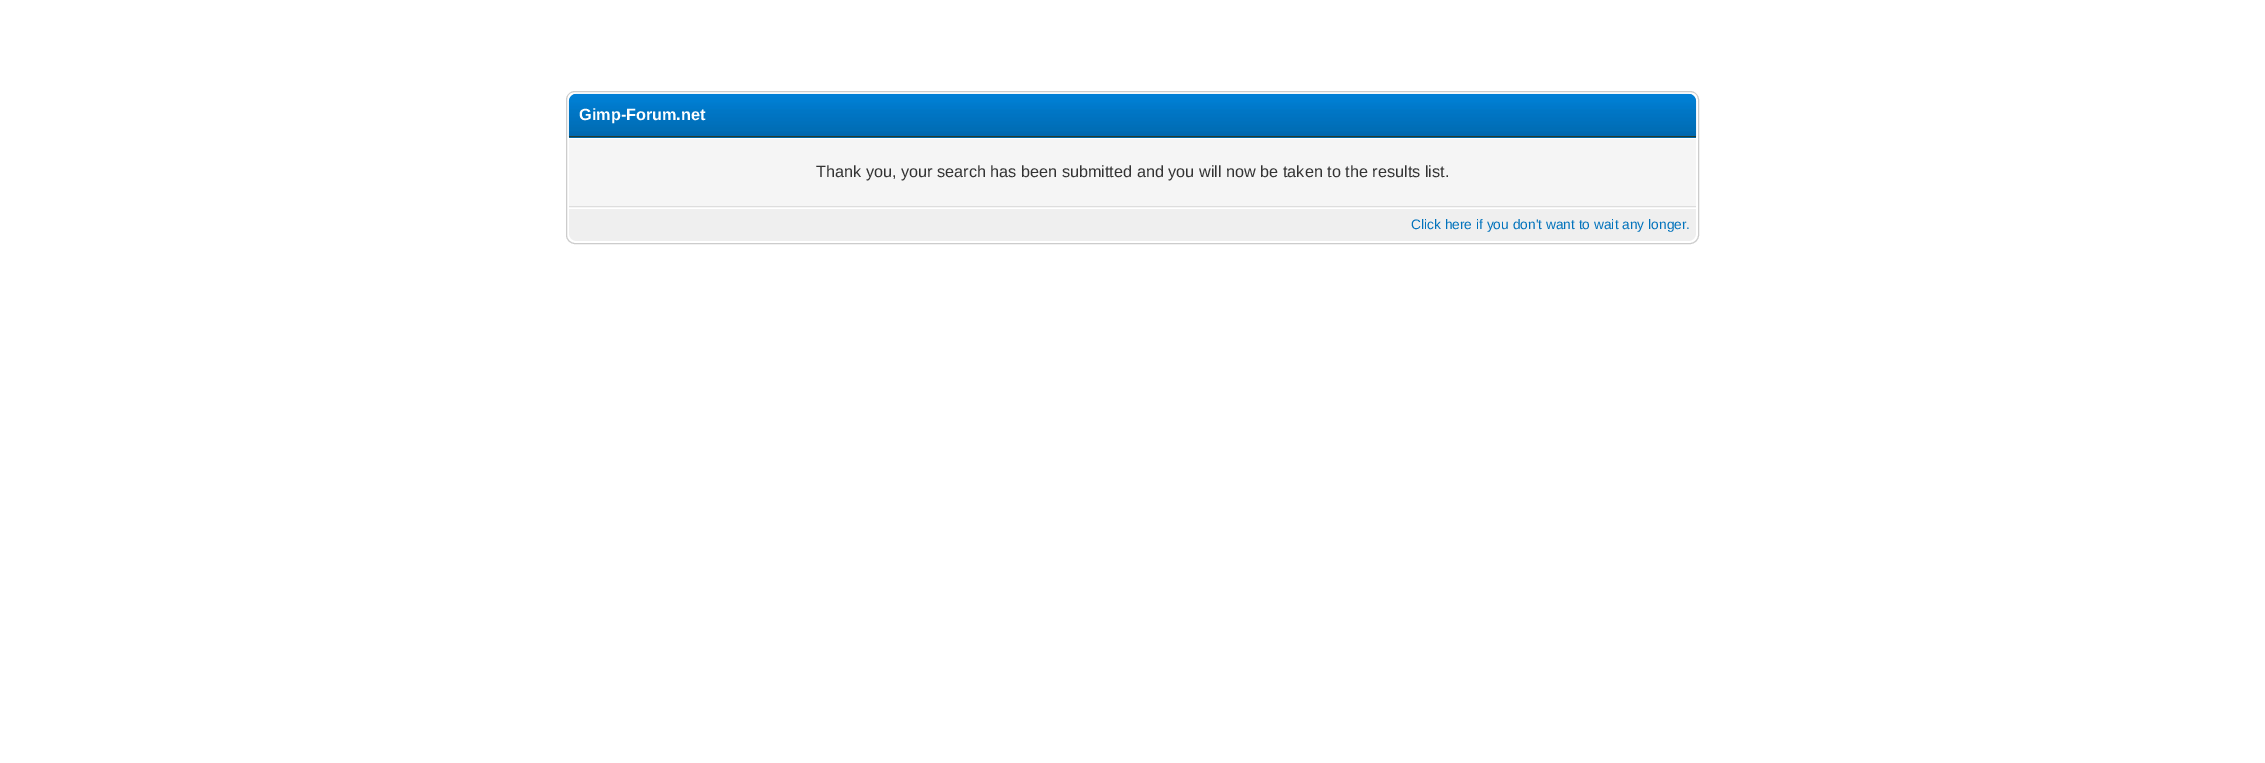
%!PS-Adobe-3.0
%%BoundingBox: 0 0 2265 763
%%LanguageLevel: 3
%%Pages: 1
%%EndComments
%%BeginProlog
/rrect { 5 dict begin { /r /h /w /y /x } { exch def } forall
  x r add y moveto x w add y 2 copy h add r arct x w add y h add x 1 index r arct
  x y h add x y r arct x y 2 copy exch w add exch r arct closepath end } def
/drawimage { 5 dict begin { /h /w /y /x /name } { exch def } forall
  gsave x y translate w h scale
  w h 8 [w 0 0 h 0 0] name (r) file false 3 colorimage grestore end } def
%%EndProlog
%%BeginSetup
<< /PageSize [2265 763] >> setpagedevice
%%EndSetup
%%Page: 1 1
0 763 translate 1 -1 scale
4 setmiterlimit
1 setgray
0 0 2265 763 rectfill
0.8 setgray
566.5 91.5 1132 152 8.5 rrect stroke
0 0.4 0.635 setrgbcolor
newpath 577 94 moveto 1688 94 lineto 1692.5 94 1696 97.5 1696 102 curveto 1696 138 lineto 569 138 lineto 569 102 lineto 569 97.5 572.5 94 577 94 curveto closepath fill
(images/1.raw) 568 93 1129 44 drawimage
0.149 0.235 0.188 setrgbcolor
569 136 1127 1 rectfill
0.961 setgray
569 139 1127 69 rectfill
0.867 setgray
569 206 1127 1 rectfill
0.937 setgray
newpath 569 208 moveto 1696 208 lineto 1696 233 lineto 1696 237.5 1692.5 241 1688 241 curveto 577 241 lineto 572.5 241 569 237.5 569 233 curveto closepath fill
1 setgray
569 208 1127 1 rectfill
/LiberationSans-Bold [16.25 0 0 -16.25 0 0] selectfont
579 120 moveto (Gimp-Forum.net) show
/LiberationSans-Regular [16.25 0 0 -16.25 0 0] selectfont
0.2 setgray
816 177 moveto (Thank you, your search has been submitted and you will now be taken to the results list.) show
/LiberationSans-Regular [13.75 0 0 -13.75 0 0] selectfont
0 0.447 0.737 setrgbcolor
1411 229 moveto (Click here if you don't want to wait any longer.) show
showpage
%%EOF
